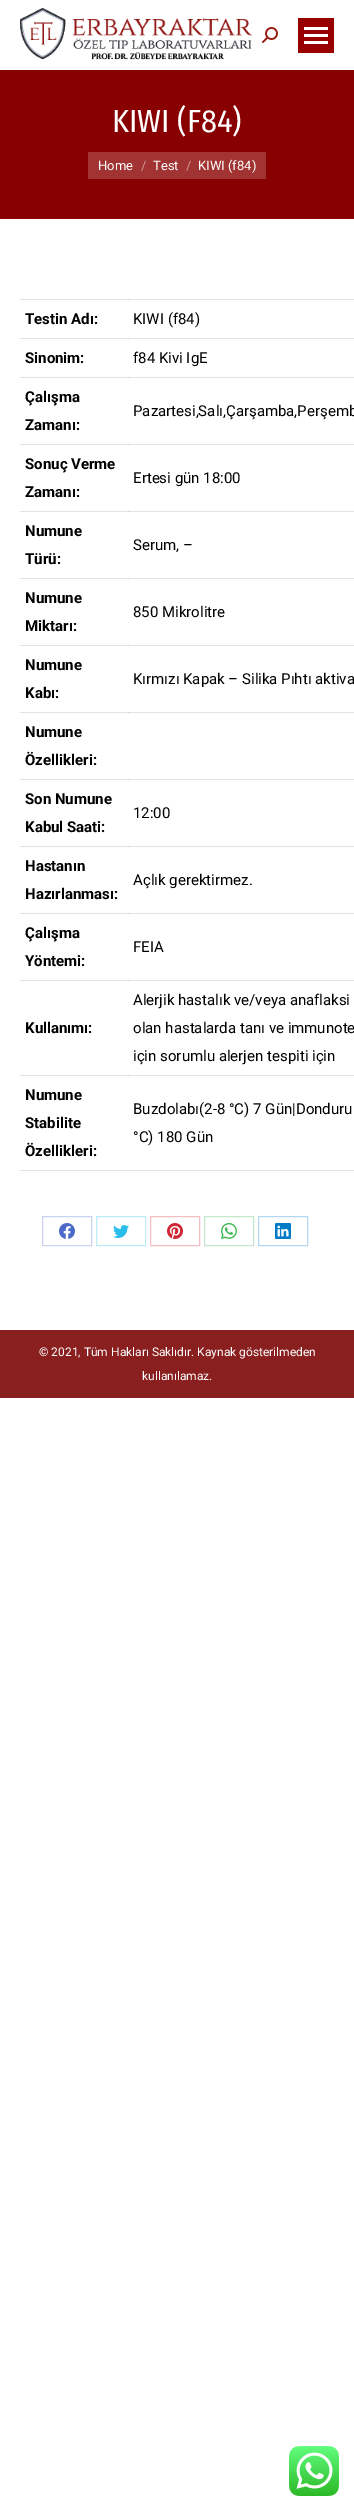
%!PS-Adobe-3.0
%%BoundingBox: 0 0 354 2511
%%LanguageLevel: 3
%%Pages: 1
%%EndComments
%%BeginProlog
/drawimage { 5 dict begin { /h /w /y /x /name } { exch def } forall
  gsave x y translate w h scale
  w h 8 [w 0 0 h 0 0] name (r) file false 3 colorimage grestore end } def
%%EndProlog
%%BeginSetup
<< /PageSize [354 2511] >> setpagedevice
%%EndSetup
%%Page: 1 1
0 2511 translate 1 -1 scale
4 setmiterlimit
1 setgray
0 0 354 2511 rectfill
0.882 0.89 0.906 setrgbcolor
20 299 334 1 rectfill
20 338 334 1 rectfill
20 377 334 1 rectfill
20 444 334 1 rectfill
20 511 334 1 rectfill
20 578 334 1 rectfill
20 645 334 1 rectfill
20 712 334 1 rectfill
20 779 334 1 rectfill
20 846 334 1 rectfill
20 913 334 1 rectfill
20 980 334 1 rectfill
20 1075 334 1 rectfill
(images/1.raw) 20 8 232 52 drawimage
(images/2.raw) 262 27 16 16 drawimage
0.6 0 0 setrgbcolor
298 18 36 35 rectfill
1 setgray
304 27 24 3 rectfill
304 34 24 3 rectfill
304 41 24 3 rectfill
0.537 0 0 setrgbcolor
0 70 354 149 rectfill
0.631 0.2 0.2 setrgbcolor
88 152 178 27 rectfill
0.882 0.89 0.906 setrgbcolor
20 1170 334 1 rectfill
0.784 0.796 0.824 setrgbcolor
128 299 1 1 rectfill
128 338 1 1 rectfill
128 377 1 1 rectfill
128 444 1 1 rectfill
128 511 1 1 rectfill
128 578 1 1 rectfill
128 645 1 1 rectfill
128 712 1 1 rectfill
128 779 1 1 rectfill
128 846 1 1 rectfill
128 913 1 1 rectfill
128 980 1 1 rectfill
128 1075 1 1 rectfill
0.788 0.824 0.933 setrgbcolor
42.5 1216.5 49 29 rectstroke
(images/3.raw) 59 1223 16 16 drawimage
0.749 0.925 0.976 setrgbcolor
96.5 1216.5 49 29 rectstroke
(images/4.raw) 113 1225 16 13 drawimage
0.945 0.749 0.761 setrgbcolor
150.5 1216.5 49 29 rectstroke
(images/5.raw) 167 1223 16 16 drawimage
0.765 0.914 0.792 setrgbcolor
204.5 1216.5 49 29 rectstroke
(images/6.raw) 221 1223 16 16 drawimage
0.702 0.843 0.933 setrgbcolor
258.5 1216.5 49 29 rectstroke
(images/7.raw) 275 1223 16 16 drawimage
0.537 0.122 0.122 setrgbcolor
0 1330 354 68 rectfill
(images/8.raw) 289 2446 50 50 drawimage
/FiraSansCondensed-Regular [32 0 0 -32 0 0] selectfont
1 setgray
112 132 moveto (KIWI \(F84\)) show
/Roboto-Regular [13 0 0 -13 0 0] selectfont
98 170 moveto (Home) show
0.816 0.6 0.6 setrgbcolor
141 170 moveto (/) show
1 setgray
153 170 moveto (Test) show
0.816 0.6 0.6 setrgbcolor
186 170 moveto (/) show
1 setgray
198 170 moveto (KIWI \(f84\)) show
/Roboto-Bold [15 0 0 -15 0 0] selectfont
0 setgray
25 324 moveto (Testin Adı:) show
/Roboto-Regular [15 0 0 -15 0 0] selectfont
133 324 moveto (KIWI \(f84\)) show
/Roboto-Bold [15 0 0 -15 0 0] selectfont
25 363 moveto (Sinonim:) show
/Roboto-Regular [15 0 0 -15 0 0] selectfont
133 363 moveto (f84 Kivi IgE) show
/Roboto-Bold [15 0 0 -15 0 0] selectfont
25 402 moveto (Çalışma) show
25 430 moveto (Zamanı:) show
/Roboto-Regular [15 0 0 -15 0 0] selectfont
133 416 moveto (Pazartesi,Salı,Çarşamba,Perşemb) show
/Roboto-Bold [15 0 0 -15 0 0] selectfont
25 469 moveto (Sonuç Verme) show
25 497 moveto (Zamanı:) show
/Roboto-Regular [15 0 0 -15 0 0] selectfont
133 483 moveto (Ertesi gün 18:00) show
/Roboto-Bold [15 0 0 -15 0 0] selectfont
25 536 moveto (Numune) show
25 564 moveto (Türü:) show
/Roboto-Regular [15 0 0 -15 0 0] selectfont
133 550 moveto (Serum, –) show
/Roboto-Bold [15 0 0 -15 0 0] selectfont
25 603 moveto (Numune) show
25 631 moveto (Miktarı:) show
/Roboto-Regular [15 0 0 -15 0 0] selectfont
133 617 moveto (850 Mikrolitre) show
/Roboto-Bold [15 0 0 -15 0 0] selectfont
25 670 moveto (Numune) show
25 698 moveto (Kabı:) show
/Roboto-Regular [15 0 0 -15 0 0] selectfont
133 684 moveto (Kırmızı Kapak – Silika Pıhtı aktiva) show
/Roboto-Bold [15 0 0 -15 0 0] selectfont
25 737 moveto (Numune) show
25 765 moveto (Özellikleri:) show
25 804 moveto (Son Numune) show
25 832 moveto (Kabul Saati:) show
/Roboto-Regular [15 0 0 -15 0 0] selectfont
133 818 moveto (12:00) show
/Roboto-Bold [15 0 0 -15 0 0] selectfont
25 871 moveto (Hastanın) show
25 899 moveto (Hazırlanması:) show
/Roboto-Regular [15 0 0 -15 0 0] selectfont
133 885 moveto (Açlık gerektirmez.) show
/Roboto-Bold [15 0 0 -15 0 0] selectfont
25 938 moveto (Çalışma) show
25 966 moveto (Yöntemi:) show
/Roboto-Regular [15 0 0 -15 0 0] selectfont
133 952 moveto (FEIA) show
/Roboto-Bold [15 0 0 -15 0 0] selectfont
25 1033 moveto (Kullanımı:) show
/Roboto-Regular [15 0 0 -15 0 0] selectfont
133 1005 moveto (Alerjik hastalık ve/veya anaflaksi) show
133 1033 moveto (olan hastalarda tanı ve immunote) show
133 1061 moveto (için sorumlu alerjen tespiti için) show
/Roboto-Bold [15 0 0 -15 0 0] selectfont
25 1100 moveto (Numune) show
25 1128 moveto (Stabilite) show
25 1156 moveto (Özellikleri:) show
/Roboto-Regular [15 0 0 -15 0 0] selectfont
133 1114 moveto (Buzdolabı\(2-8 °C\) 7 Gün|Donduru) show
133 1142 moveto (°C\) 180 Gün) show
/Roboto-Regular [12 0 0 -12 0 0] selectfont
1 setgray
39 1356 moveto (© 2021, Tüm Hakları Saklıdır. Kaynak gösterilmeden) show
142 1380 moveto (kullanılamaz.) show
showpage
%%EOF
